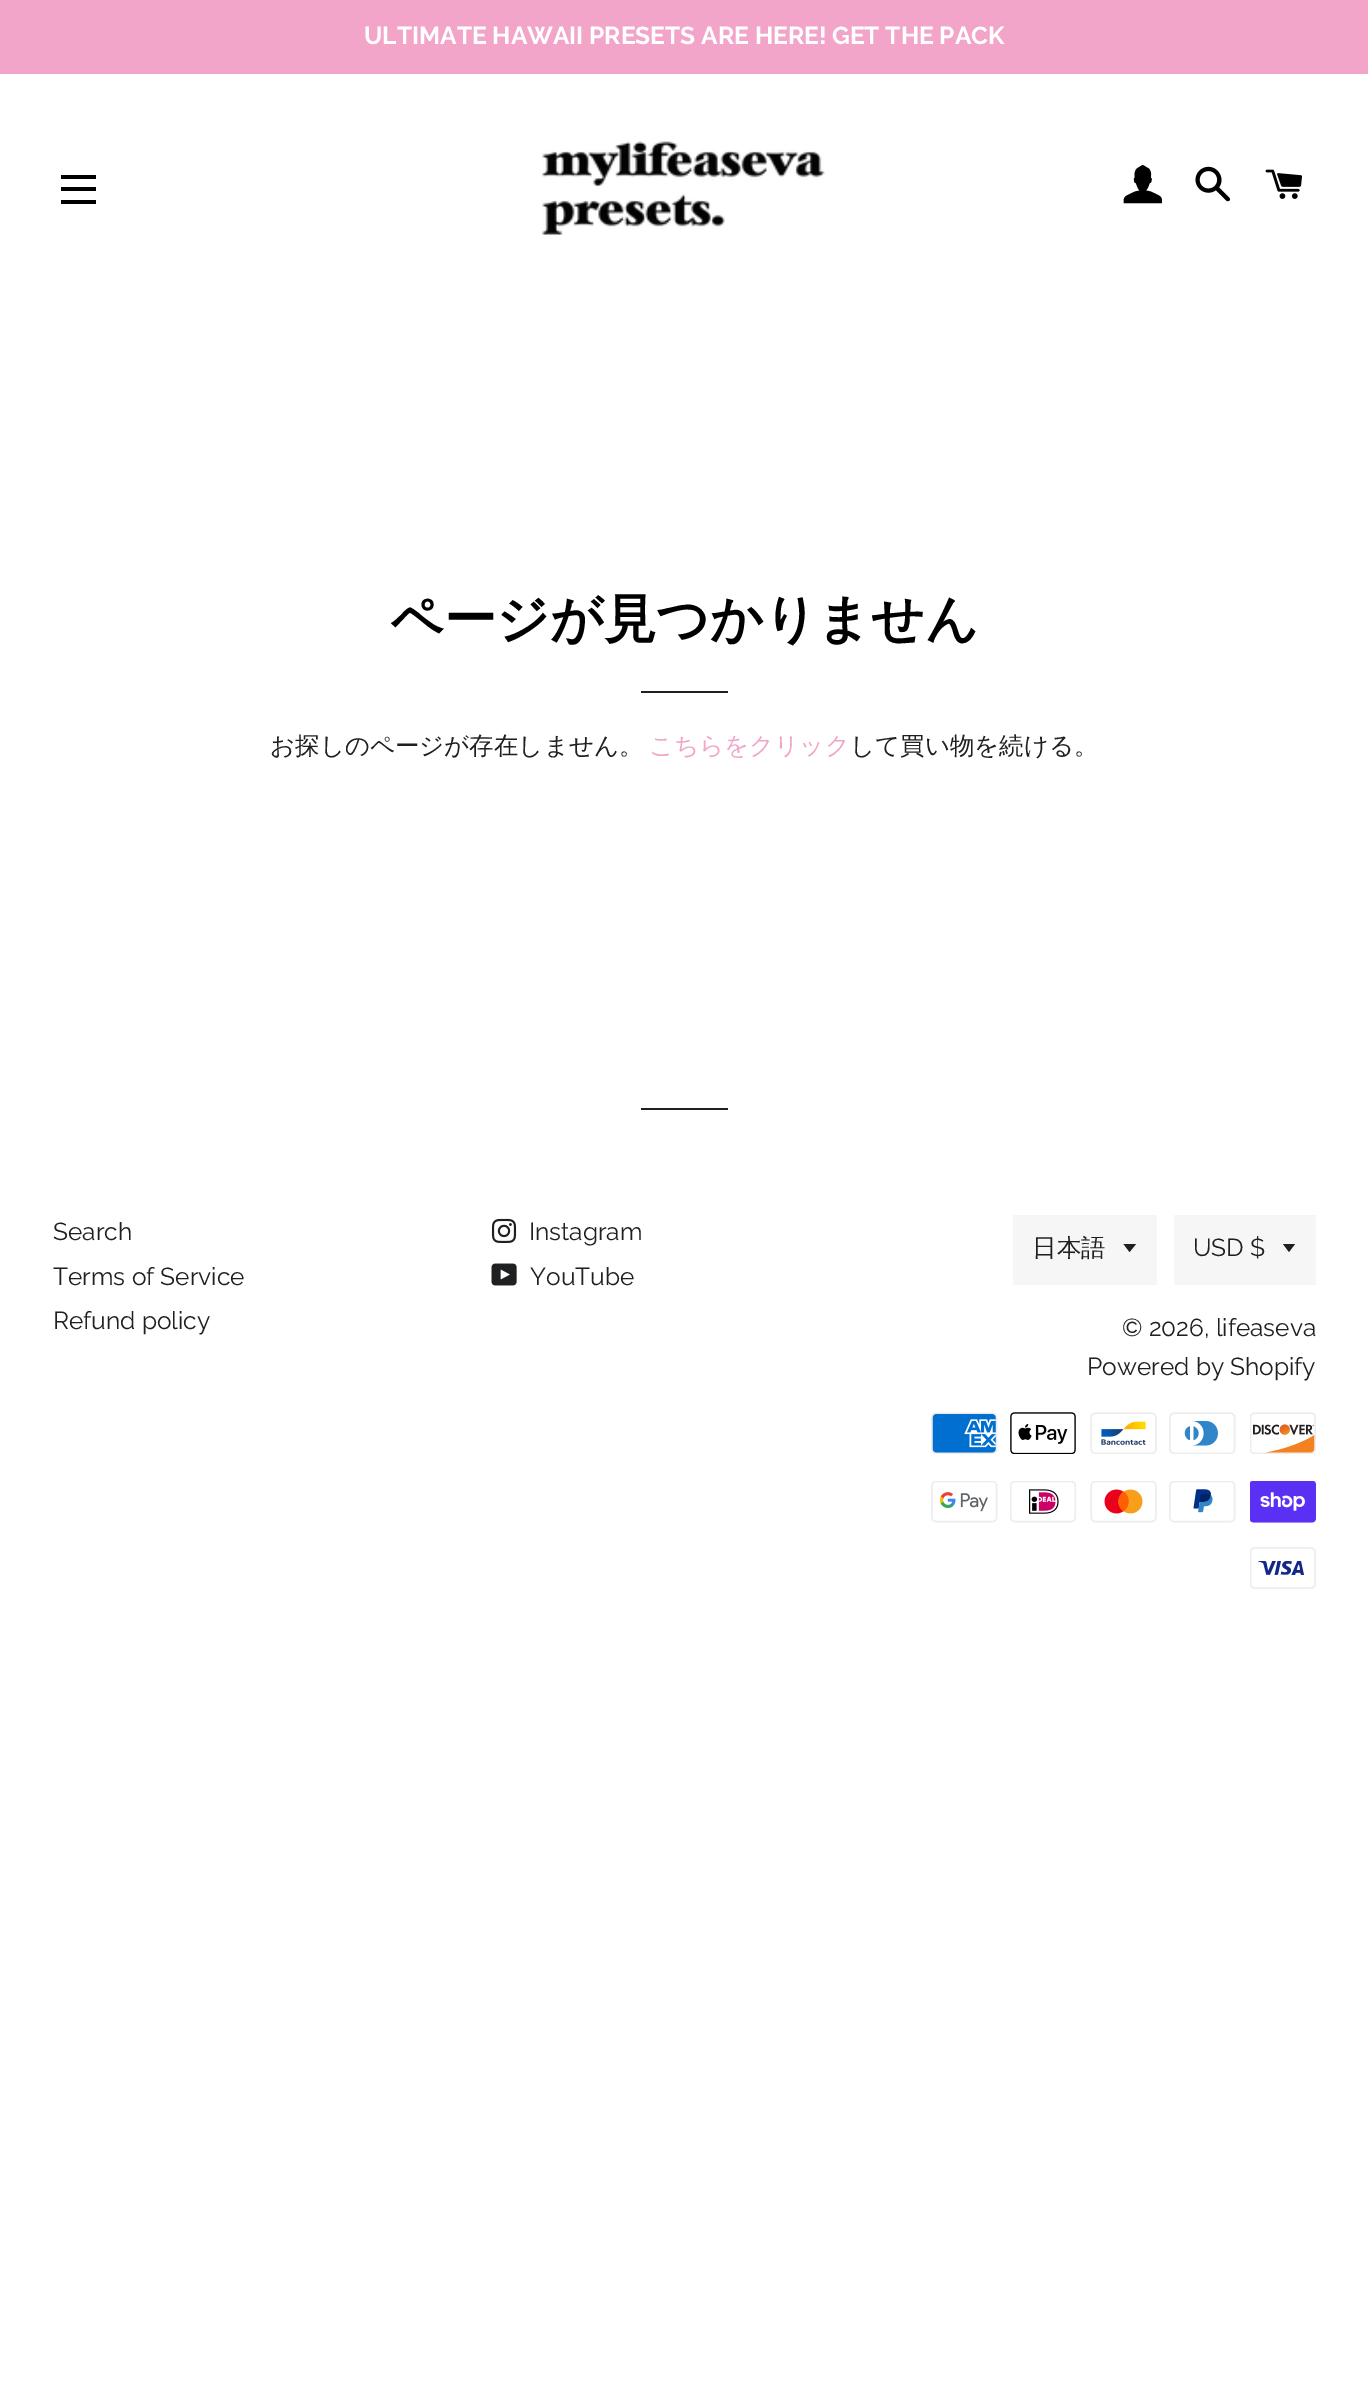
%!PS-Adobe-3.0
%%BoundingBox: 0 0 1368 2384
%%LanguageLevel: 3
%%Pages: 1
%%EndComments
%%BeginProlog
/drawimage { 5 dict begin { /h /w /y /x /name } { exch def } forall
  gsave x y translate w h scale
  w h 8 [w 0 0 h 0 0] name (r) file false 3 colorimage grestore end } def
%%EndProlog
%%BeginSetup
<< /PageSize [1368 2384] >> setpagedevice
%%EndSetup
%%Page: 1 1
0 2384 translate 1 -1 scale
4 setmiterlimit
1 setgray
0 0 1368 2384 rectfill
0.949 0.647 0.788 setrgbcolor
0 0 1368 74 rectfill
0 setgray
61 175 35 4 rectfill
61 187 35 4 rectfill
61 200 35 4 rectfill
(images/1.raw) 542 141 283 94 drawimage
(images/2.raw) 1123 165 39 39 drawimage
(images/3.raw) 1195 166 35 36 drawimage
(images/4.raw) 1265 169 37 30 drawimage
0.122 0.125 0.129 setrgbcolor
641 691 87 2 rectfill
641 1108 87 2 rectfill
(images/5.raw) 491 1218 26 25 drawimage
(images/6.raw) 491 1263 26 23 drawimage
0.965 setgray
1013 1215 144 70 rectfill
0.122 0.125 0.129 setrgbcolor
newpath 1123.5 1244 moveto 1129.5 1252 lineto 1136 1244 lineto closepath fill
0.965 setgray
1174 1215 142 70 rectfill
0.122 0.125 0.129 setrgbcolor
newpath 1283 1244 moveto 1289 1252 lineto 1295 1244 lineto closepath fill
(images/7.raw) 931 1412 67 42 drawimage
(images/8.raw) 1010 1412 66 42 drawimage
(images/9.raw) 1090 1412 67 42 drawimage
(images/10.raw) 1169 1412 67 42 drawimage
(images/11.raw) 1250 1412 66 42 drawimage
(images/12.raw) 931 1481 67 42 drawimage
(images/13.raw) 1010 1481 66 42 drawimage
(images/14.raw) 1090 1481 67 42 drawimage
(images/15.raw) 1169 1481 67 42 drawimage
(images/16.raw) 1250 1481 66 42 drawimage
(images/17.raw) 1250 1547 66 42 drawimage
/Raleway-Bold [24.5 0 0 -24.5 0 0] selectfont
1 setgray
364 44 moveto (ULTIMATE HAWAII PRESETS ARE HERE! GET THE PACK) show
/WenQuanYiZenHei-Bold [52.5 0 0 -52.5 0 0] selectfont
0 setgray
390 637 moveto (ページが見つかりません) show
/WenQuanYiZenHei-Medium [24.5 0 0 -24.5 0 0] selectfont
0.122 0.125 0.129 setrgbcolor
270 754 moveto (お探しのページが存在しません。) show
0.949 0.647 0.788 setrgbcolor
649 754 moveto (こちらをクリック) show
0.122 0.125 0.129 setrgbcolor
850 754 moveto (して買い物を続ける。) show
/Raleway-Regular [24.5 0 0 -24.5 0 0] selectfont
53 1240 moveto (Search) show
53 1285 moveto (Terms of Service) show
53 1329 moveto (Refund policy) show
529 1240 moveto (Instagram) show
530 1285 moveto (YouTube) show
/WenQuanYiZenHei-Medium [24.5 0 0 -24.5 0 0] selectfont
1032 1256 moveto (日本語) show
/Raleway-Regular [24.5 0 0 -24.5 0 0] selectfont
1193 1256 moveto (USD $) show
1122 1336 moveto (© 2026, lifeaseva) show
1087 1375 moveto (Powered by Shopify) show
showpage
%%EOF
